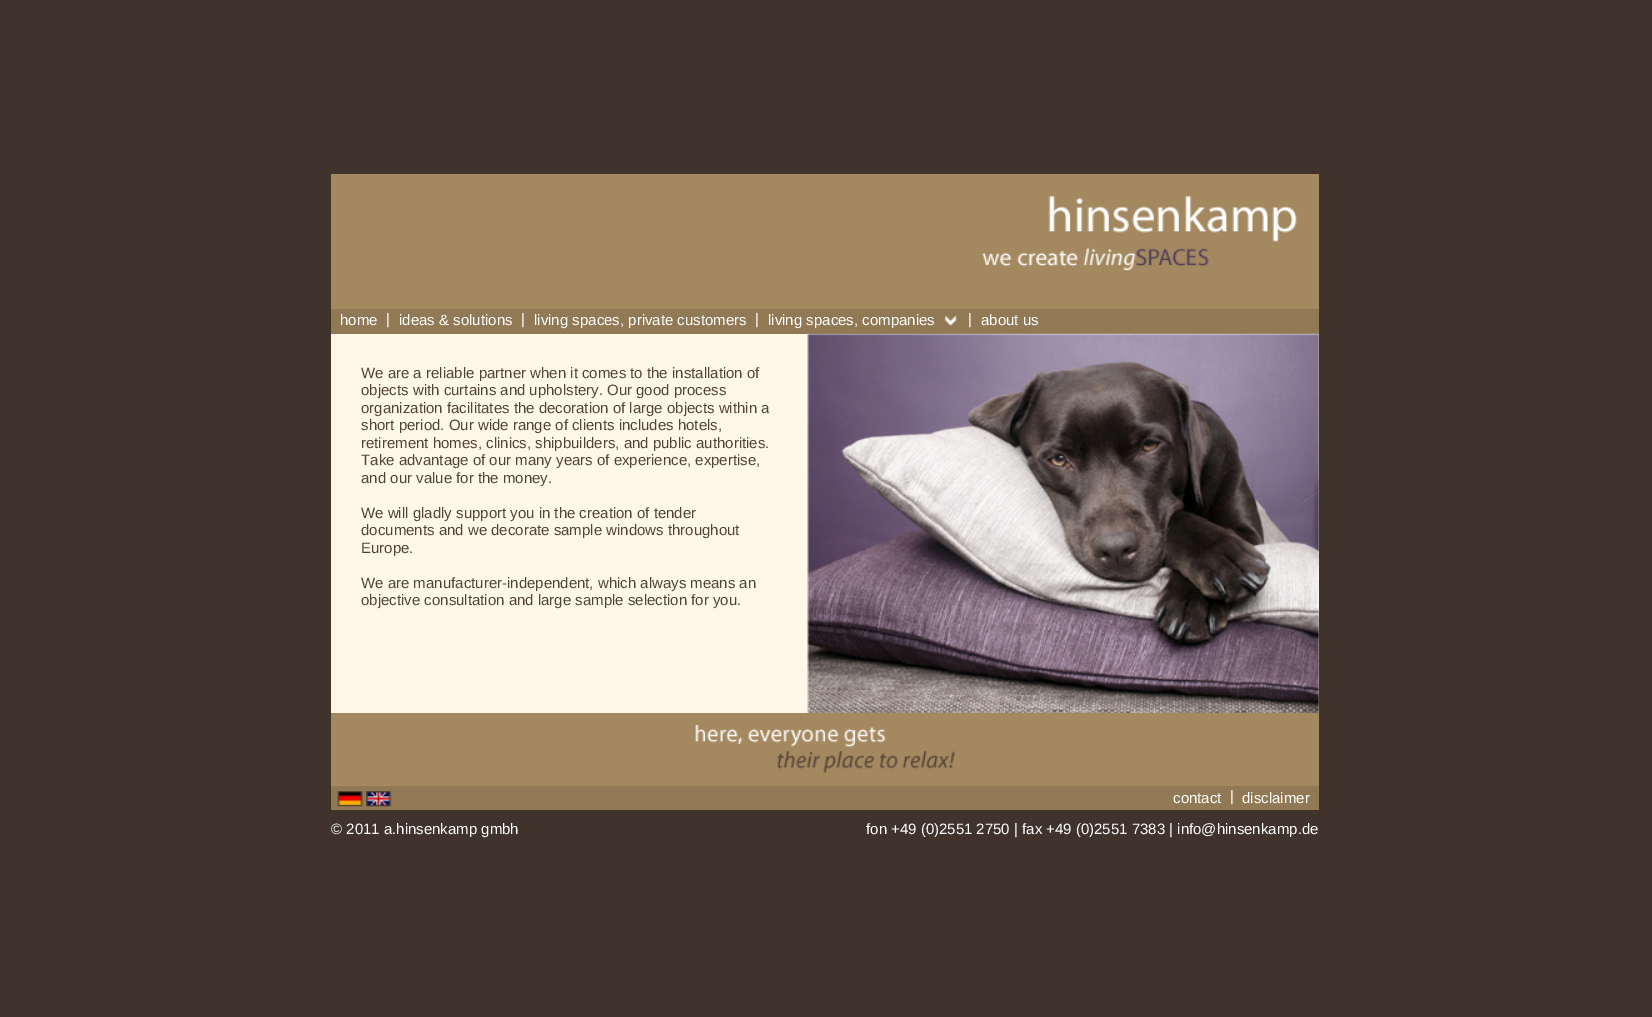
%!PS-Adobe-3.0
%%BoundingBox: 0 0 1652 1017
%%LanguageLevel: 3
%%Pages: 1
%%EndComments
%%BeginProlog
/drawimage { 5 dict begin { /h /w /y /x /name } { exch def } forall
  gsave x y translate w h scale
  w h 8 [w 0 0 h 0 0] name (r) file false 3 colorimage grestore end } def
%%EndProlog
%%BeginSetup
<< /PageSize [1652 1017] >> setpagedevice
%%EndSetup
%%Page: 1 1
0 1017 translate 1 -1 scale
4 setmiterlimit
0.251 0.2 0.173 setrgbcolor
0 0 1652 1017 rectfill
0.643 0.533 0.376 setrgbcolor
331 174 988 135 rectfill
(images/1.raw) 982 196 315 75 drawimage
0.569 0.475 0.333 setrgbcolor
331 309 988 25 rectfill
(images/2.raw) 944 315 13 11 drawimage
1 0.973 0.914 setrgbcolor
331 334 477 379 rectfill
(images/3.raw) 807 333 512 380 drawimage
0.643 0.533 0.376 setrgbcolor
331 713 988 73 rectfill
(images/4.raw) 695 725 260 48 drawimage
0.569 0.475 0.333 setrgbcolor
331 786 988 24 rectfill
(images/5.raw) 337 791 26 16 drawimage
(images/6.raw) 366 791 26 16 drawimage
/LiberationSans-Regular [15 0 0 -15 0 0] selectfont
1 setgray
340 325 moveto (home) show
386 324 moveto (|) show
399 325 moveto (ideas & solutions) show
521 324 moveto (|) show
534 325 moveto (living spaces, private customers) show
755 324 moveto (|) show
768 325 moveto (living spaces, companies) show
968 324 moveto (|) show
981 325 moveto (about us) show
0.325 0.259 0.224 setrgbcolor
361 378 moveto (We are a reliable partner when it comes to the installation of) show
361 395 moveto (objects with curtains and upholstery. Our good process) show
361 413 moveto (organization facilitates the decoration of large objects within a) show
361 430 moveto (short period. Our wide range of clients includes hotels,) show
361 448 moveto (retirement homes, clinics, shipbuilders, and public authorities.) show
361 465 moveto (Take advantage of our many years of experience, expertise,) show
361 483 moveto (and our value for the money.) show
361 518 moveto (We will gladly support you in the creation of tender) show
361 535 moveto (documents and we decorate sample windows throughout) show
361 553 moveto (Europe.) show
361 588 moveto (We are manufacturer-independent, which always means an) show
361 605 moveto (objective consultation and large sample selection for you.) show
1 setgray
1173 803 moveto (contact) show
1230 801 moveto (|) show
1242 803 moveto (disclaimer) show
331 834 moveto (© 2011 a.hinsenkamp gmbh) show
866 834 moveto (fon +49 \(0\)2551 2750 | fax +49 \(0\)2551 7383 | info@hinsenkamp.de) show
showpage
%%EOF
